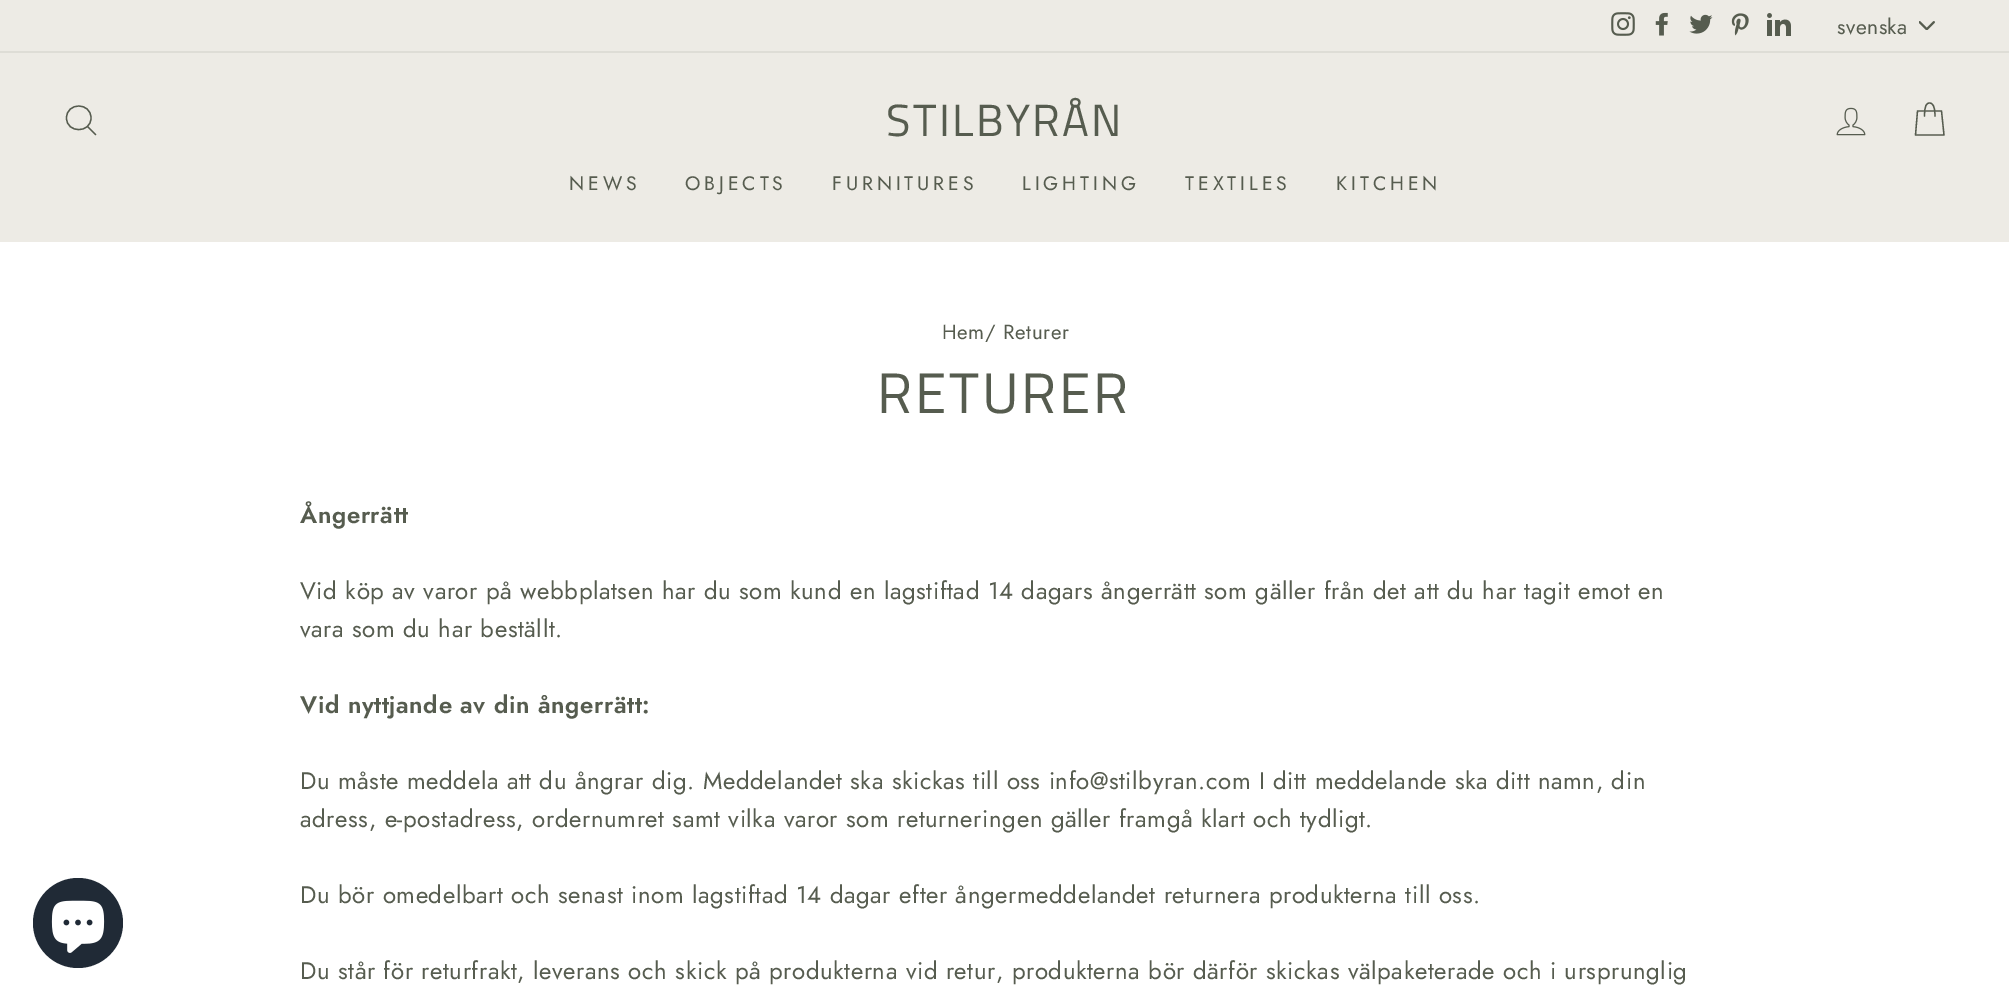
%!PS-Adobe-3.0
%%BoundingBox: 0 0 2009 998
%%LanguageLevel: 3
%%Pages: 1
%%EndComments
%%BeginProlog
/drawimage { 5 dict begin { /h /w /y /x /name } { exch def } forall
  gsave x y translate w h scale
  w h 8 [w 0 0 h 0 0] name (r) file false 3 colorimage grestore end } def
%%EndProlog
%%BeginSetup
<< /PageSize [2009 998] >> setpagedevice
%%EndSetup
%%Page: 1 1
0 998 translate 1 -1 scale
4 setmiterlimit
1 setgray
0 0 2009 998 rectfill
0.125 0.165 0.212 setrgbcolor
newpath 78 923 45 0 360 arc closepath fill
(images/1.raw) 51 900 54 53 drawimage
0.929 0.922 0.898 setrgbcolor
0 0 2009 51 rectfill
(images/2.raw) 1611 12 24 24 drawimage
(images/3.raw) 1655 12 13 24 drawimage
(images/4.raw) 1689 14 24 20 drawimage
(images/5.raw) 1731 13 18 23 drawimage
(images/6.raw) 1767 13 24 23 drawimage
(images/7.raw) 1919 21 16 9 drawimage
0 53 2009 189 rectfill
0.871 0.867 0.839 setrgbcolor
0 51 2009 2 rectfill
0.337 0.361 0.31 setrgbcolor
1.3 setlinewidth
1 setlinecap
1 setlinejoin
newpath 91 118 moveto 91 133.5 66.5 133.5 66.5 118 curveto 66.5 102 91 102 91 118 curveto closepath 95.5 134.5 moveto 87.5 126.5 lineto stroke
(images/8.raw) 1836 107 30 29 drawimage
newpath 1924.5 116 moveto 1924.5 105.5 1926.5 103 1929.5 103 curveto 1932.5 103 1935 105.5 1935 116 curveto 1917.5 111 moveto 1941.5 111 lineto 1944 135 lineto 1915.5 135 lineto closepath stroke
/Jost-Regular [21 0 0 -21 0 0] selectfont
1837 34 moveto 0.5 0 (svenska) ashow
/TitilliumWeb-Regular [45 0 0 -45 0 0] selectfont
886 136 moveto 2.25 0 (STILBYRÅN) ashow
/Jost-Regular [19.5 0 0 -19.5 0 0] selectfont
569 190 moveto 3.9 0 (NEWS) ashow
685 190 moveto 3.9 0 (OBJECTS) ashow
832 190 moveto 3.9 0 (FURNITURES) ashow
1022 190 moveto 3.9 0 (LIGHTING) ashow
1185 190 moveto 3.9 0 (TEXTILES) ashow
1336 190 moveto 3.9 0 (KITCHEN) ashow
/Jost-Regular [20.5 0 0 -20.5 0 0] selectfont
942 339 moveto 0.6 0 (Hem/ Returer) ashow
/TitilliumWeb-Regular [57 0 0 -57 0 0] selectfont
877 413 moveto 2.75 0 (RETURER) ashow
/Jost-SemiBold [24 0 0 -24 0 0] selectfont
300 523 moveto 0.6 0 (Ångerrätt) ashow
/Jost-Regular [24 0 0 -24 0 0] selectfont
300 599 moveto 0.6 0 (Vid köp av varor på webbplatsen har du som kund en lagstiftad 14 dagars ångerrätt som gäller från det att du har tagit emot en) ashow
300 637 moveto 0.6 0 (vara som du har beställt.) ashow
/Jost-SemiBold [24 0 0 -24 0 0] selectfont
300 713 moveto 0.6 0 (Vid nyttjande av din ångerrätt:) ashow
/Jost-Regular [24 0 0 -24 0 0] selectfont
300 789 moveto 0.6 0 (Du måste meddela att du ångrar dig. Meddelandet ska skickas till oss info@stilbyran.com I ditt meddelande ska ditt namn, din) ashow
300 827 moveto 0.6 0 (adress, e-postadress, ordernumret samt vilka varor som returneringen gäller framgå klart och tydligt.) ashow
300 903 moveto 0.6 0 (Du bör omedelbart och senast inom lagstiftad 14 dagar efter ångermeddelandet returnera produkterna till oss.) ashow
300 979 moveto 0.6 0 (Du står för returfrakt, leverans och skick på produkterna vid retur, produkterna bör därför skickas välpaketerade och i ursprunglig) ashow
showpage
%%EOF
